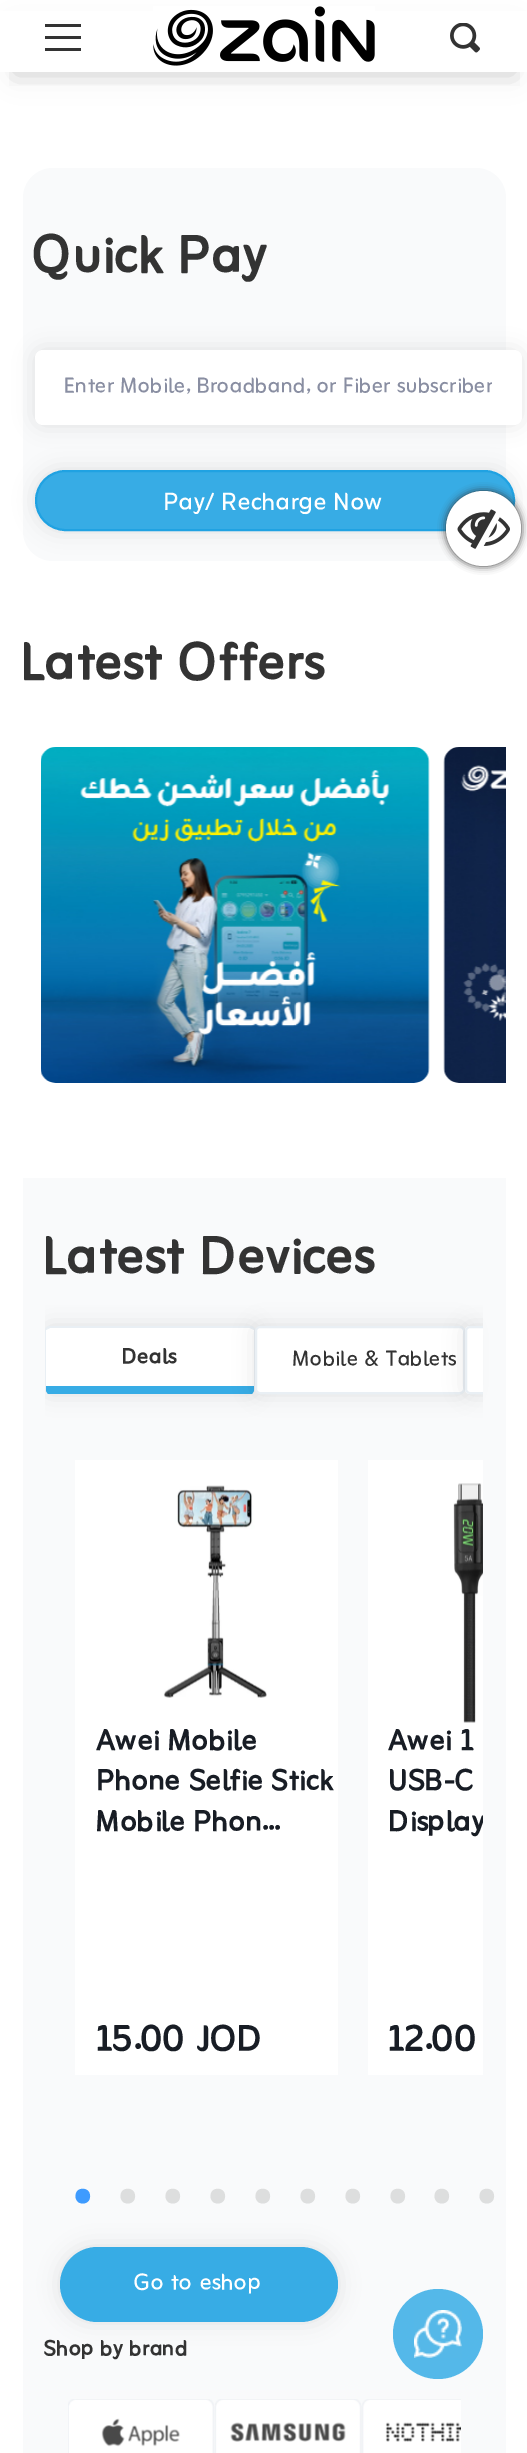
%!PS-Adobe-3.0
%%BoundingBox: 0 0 527 2453
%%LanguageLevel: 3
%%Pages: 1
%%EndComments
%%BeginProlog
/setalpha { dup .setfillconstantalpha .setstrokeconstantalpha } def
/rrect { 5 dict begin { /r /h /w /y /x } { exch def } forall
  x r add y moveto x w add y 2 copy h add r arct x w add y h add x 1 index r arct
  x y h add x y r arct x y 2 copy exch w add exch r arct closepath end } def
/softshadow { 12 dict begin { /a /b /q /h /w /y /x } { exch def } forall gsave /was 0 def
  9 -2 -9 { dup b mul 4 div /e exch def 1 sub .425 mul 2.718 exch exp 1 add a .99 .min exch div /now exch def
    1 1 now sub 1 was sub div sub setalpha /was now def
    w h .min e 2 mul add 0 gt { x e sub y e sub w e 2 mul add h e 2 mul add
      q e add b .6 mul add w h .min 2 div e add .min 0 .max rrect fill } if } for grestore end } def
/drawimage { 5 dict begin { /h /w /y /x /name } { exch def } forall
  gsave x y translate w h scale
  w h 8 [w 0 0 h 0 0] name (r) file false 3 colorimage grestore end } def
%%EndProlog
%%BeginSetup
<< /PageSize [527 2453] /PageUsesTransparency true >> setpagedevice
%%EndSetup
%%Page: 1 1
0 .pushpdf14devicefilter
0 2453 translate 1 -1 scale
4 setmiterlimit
1 setgray
0 0 527 2453 rectfill
0 setgray
14 29 501 45 0 14 0.1 softshadow
1 setgray
0 11 527 61 rectfill
gsave
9 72 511 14 rectclip
0 setgray
14 29 501 45 0 14 0.1 softshadow
grestore
0.2 setgray
45 36 36 3 rectfill
45 24 36 3 rectfill
45 48 36 3 rectfill
(images/1.raw) 153 6 222 60 drawimage
(images/2.raw) 450 23 30 30 drawimage
0.976 0.98 0.984 setrgbcolor
23 168 483 393 30 rrect fill
0 setgray
35 350 487 75 8 10.5 0.1 softshadow
1 setgray
35 350 487 75 8 rrect fill
0 setgray
35 470 480 61 30.5 10.5 0.1 softshadow
0.216 0.675 0.898 setrgbcolor
36 471 478 59 29.5 rrect gsave fill grestore
0.125 0.635 0.886 setrgbcolor
2 setlinewidth
stroke
(images/3.raw) 41 747 389 336 drawimage
(images/4.raw) 443 747 63 336 drawimage
0.976 0.98 0.984 setrgbcolor
23 1178 483 1275 rectfill
gsave
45 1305 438 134 rectclip
0 setgray
45 1326 210 68 5 10.5 0.1 softshadow
grestore
1 setgray
newpath 50 1328 moveto 250 1328 lineto 252 1328 254 1329 254 1330 curveto 254 1386 lineto 46 1386 lineto 46 1330 lineto 46 1329 48 1328 50 1328 curveto closepath fill
0.914 0.937 0.957 setrgbcolor
newpath 50 1326 moveto 48 1326 47 1327 46 1327 curveto 48 1329 lineto 50 1328 lineto 250 1328 lineto 252 1329 lineto 254 1327 lineto 253 1327 252 1326 250 1326 curveto closepath fill
newpath 255 1389 moveto 255 1330 lineto 254 1327 lineto 252 1329 lineto 254 1330 lineto 254 1386 lineto 254 1391 lineto closepath fill
0.216 0.675 0.898 setrgbcolor
newpath 48 1394 moveto 46 1391 lineto 46 1386 lineto 254 1386 lineto 254 1391 lineto 252 1394 lineto closepath fill
0.914 0.937 0.957 setrgbcolor
newpath 45 1330 moveto 45 1389 lineto 46 1391 lineto 46 1386 lineto 46 1330 lineto 48 1329 lineto 46 1327 lineto closepath fill
0 setgray
255 1326 210 68 5 10.5 0.1 softshadow
1 setgray
256 1327 208 66 4 rrect gsave fill grestore
0.914 0.937 0.957 setrgbcolor
stroke
gsave
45 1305 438 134 rectclip
0 setgray
465 1326 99 68 5 10.5 0.1 softshadow
grestore
1 setgray
newpath 470 1326 moveto 483 1326 lineto 483 1394 lineto 470 1394 lineto 467 1394 465 1392 465 1389 curveto 465 1331 lineto 465 1328 467 1326 470 1326 curveto closepath fill
gsave
45 1305 438 134 rectclip
0.914 0.937 0.957 setrgbcolor
466 1327 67 66 4 rrect stroke
grestore
75 1460 263 615 rectfill
(images/5.raw) 163 1485 104 213 drawimage
368 1460 115 615 rectfill
(images/6.raw) 453 1483 30 240 drawimage
0 setgray
60 2247 278 75 37.5 10.5 0.1 softshadow
0.216 0.675 0.898 setrgbcolor
60 2247 278 75 37.5 rrect fill
(images/7.raw) 68 2399 147 54 drawimage
(images/8.raw) 215 2399 147 54 drawimage
(images/9.raw) 362 2399 99 54 drawimage
0.2 setgray
446 491 75 75 37.5 4 1 softshadow
1 setgray
newpath 483.5 528.5 37.5 0 360 arc closepath fill
(images/10.raw) 457 509 53 40 drawimage
0.329 0.722 0.914 setrgbcolor
newpath 438 2334 45 0 360 arc closepath fill
(images/11.raw) 414 2310 48 48 drawimage
/Zain-Bold [51 0 0 -51 0 0] selectfont
0.2 setgray
35 269 moveto (Quick Pay) show
gsave
65 372 427 30 rectclip
/Zain-Regular [21 0 0 -21 0 0] selectfont
0.537 0.557 0.635 setrgbcolor
65 391 moveto (Enter Mobile, Broadband, or Fiber subscriber) show
grestore
/Zain-Regular [24 0 0 -24 0 0] selectfont
1 setgray
165 508 moveto (Pay/ Recharge Now) show
/Zain-Bold [51 0 0 -51 0 0] selectfont
0.2 setgray
23 676 moveto (Latest Offers) show
45 1270 moveto (Latest Devices) show
/Zain-Bold [21 0 0 -21 0 0] selectfont
123 1362 moveto (Deals) show
/Zain-Regular [21 0 0 -21 0 0] selectfont
294 1364 moveto (Mobile & Tablets) show
/Zain-Bold [28.5 0 0 -28.5 0 0] selectfont
0.094 0.114 0.145 setrgbcolor
98 1748 moveto (Awei Mobile) show
98 1788 moveto (Phone Selfie Stick) show
98 1829 moveto (Mobile Phon...) show
/Zain-Bold [34.5 0 0 -34.5 0 0] selectfont
98 2048 moveto (15.00 JOD) show
/Zain-Bold [28.5 0 0 -28.5 0 0] selectfont
390 1748 moveto (Awei 1) show
390 1788 moveto (USB-C) show
gsave
45 1439 438 681 rectclip
390 1829 moveto (Display) show
grestore
/Zain-Bold [34.5 0 0 -34.5 0 0] selectfont
390 2048 moveto (12.00) show
/Zain-Regular [75 0 0 -75 0 0] selectfont
0.243 0.608 0.996 setrgbcolor
72 2217 moveto (•) show
0.867 0.871 0.871 setrgbcolor
117 2217 moveto (• • • • • • • • •) show
/Zain-Regular [22.5 0 0 -22.5 0 0] selectfont
1 setgray
135 2288 moveto (Go to eshop) show
/Zain-Bold [21 0 0 -21 0 0] selectfont
0.2 setgray
45 2354 moveto (Shop by brand) show
.poppdf14devicefilter showpage
%%EOF
